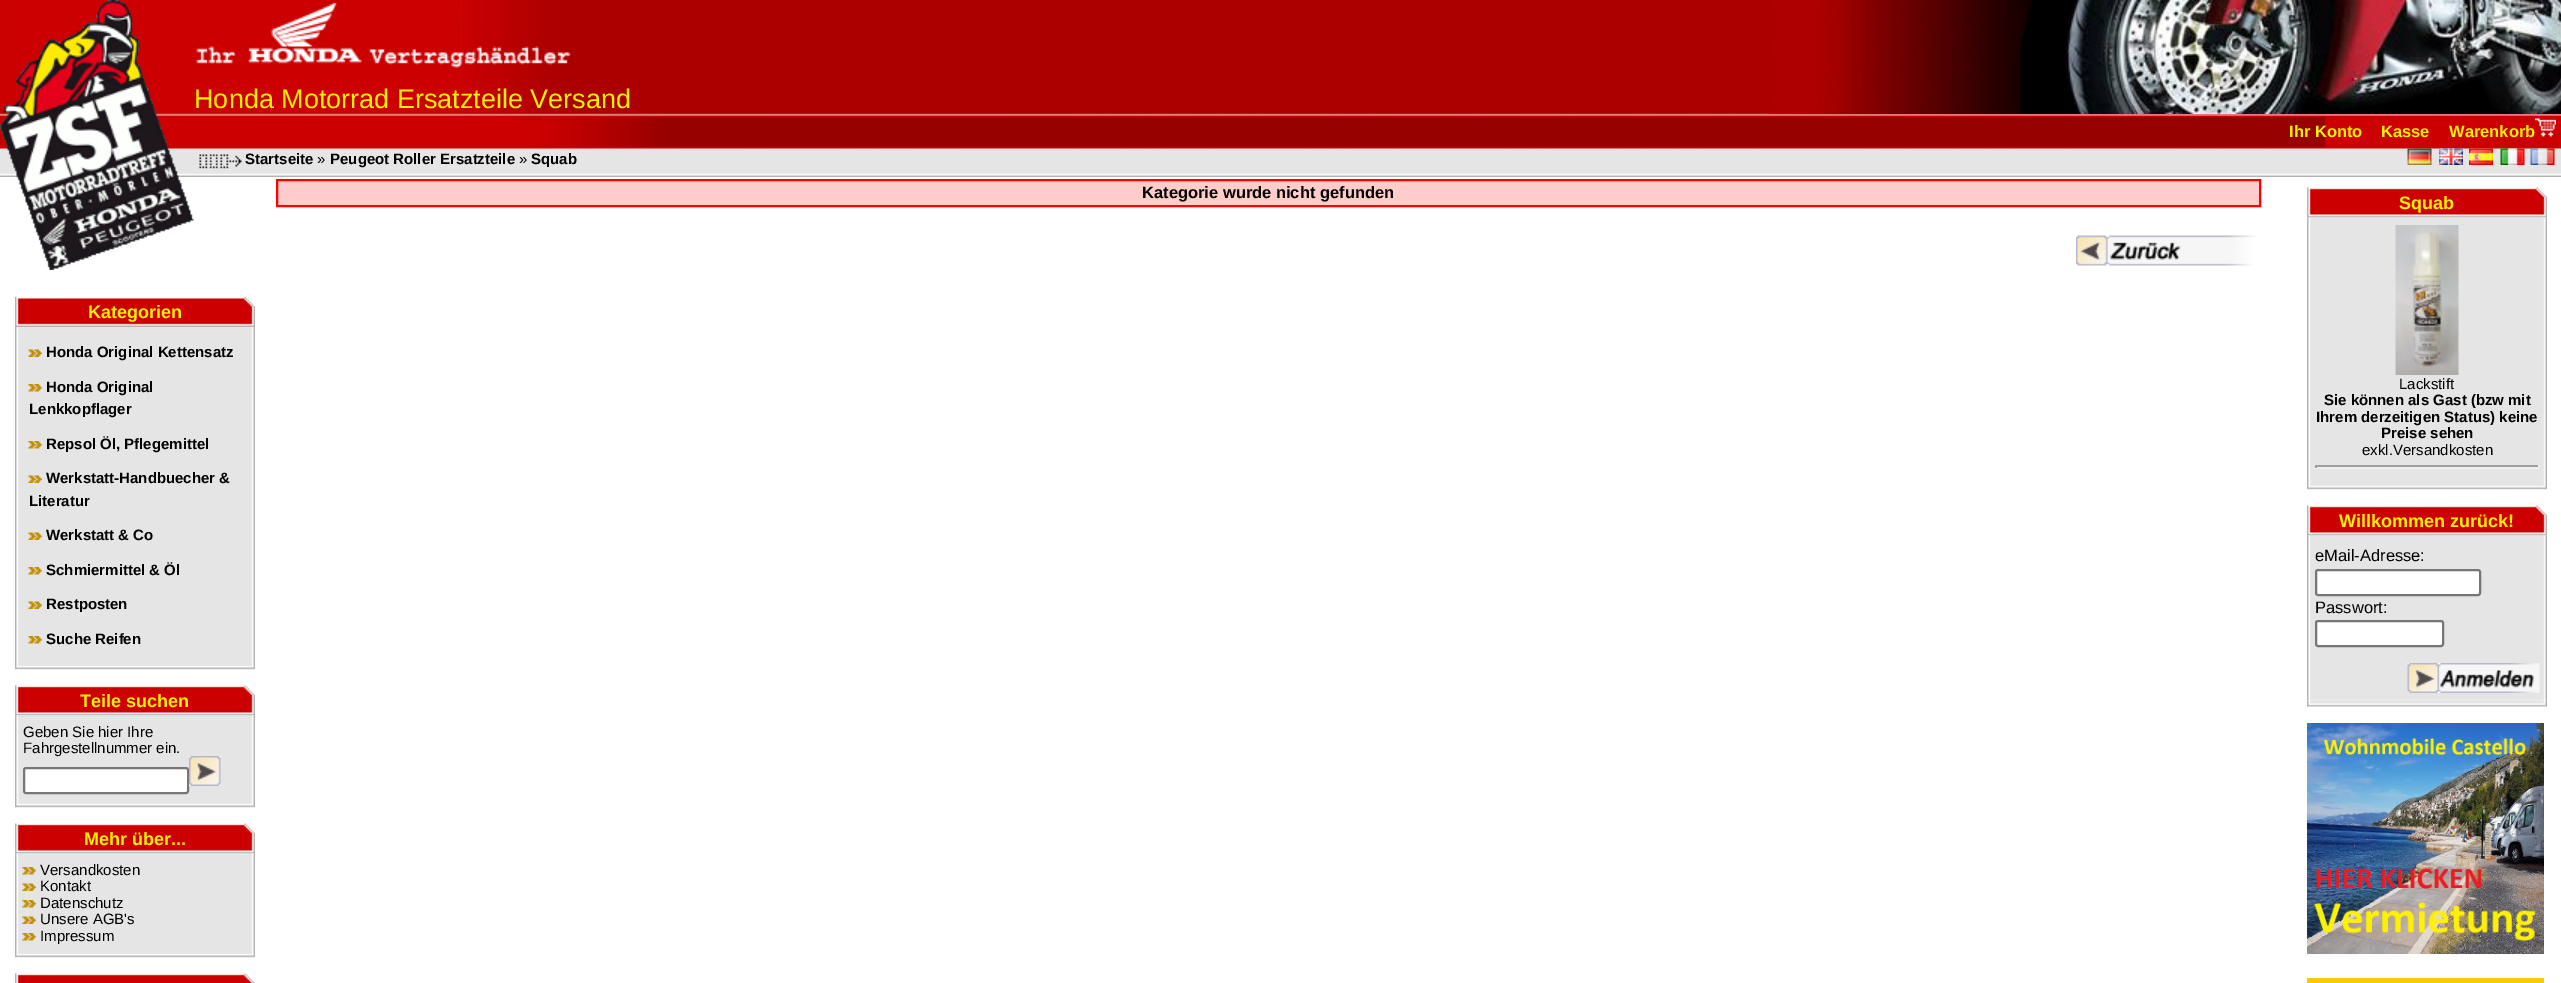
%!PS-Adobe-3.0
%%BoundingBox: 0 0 2561 983
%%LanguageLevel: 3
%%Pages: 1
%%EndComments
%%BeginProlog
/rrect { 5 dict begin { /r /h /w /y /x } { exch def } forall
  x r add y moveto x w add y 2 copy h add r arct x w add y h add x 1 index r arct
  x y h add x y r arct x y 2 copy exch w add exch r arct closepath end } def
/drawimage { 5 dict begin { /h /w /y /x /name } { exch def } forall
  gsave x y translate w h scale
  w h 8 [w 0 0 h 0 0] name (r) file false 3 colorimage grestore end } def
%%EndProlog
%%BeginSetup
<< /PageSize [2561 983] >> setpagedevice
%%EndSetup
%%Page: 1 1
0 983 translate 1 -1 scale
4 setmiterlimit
1 setgray
0 0 2561 983 rectfill
(images/2.raw) 0 0 2561 116 drawimage
(images/5.raw) 0 115 2561 62 drawimage
(images/1.raw) 0 0 194 270 drawimage
(images/3.raw) 196 2 375 66 drawimage
(images/4.raw) 1768 0 793 114 drawimage
(images/6.raw) 2535 118 21 19 drawimage
(images/7.raw) 199 154 43 15 drawimage
(images/8.raw) 2407 148 25 17 drawimage
(images/9.raw) 2439 148 24 17 drawimage
(images/10.raw) 2469 148 24 17 drawimage
(images/11.raw) 2500 148 25 17 drawimage
(images/12.raw) 2530 148 25 17 drawimage
(images/13.raw) 15 297 240 30 drawimage
(images/14.raw) 15 327 240 336 drawimage
(images/15.raw) 28 349 14 8 drawimage
(images/16.raw) 28 384 14 8 drawimage
(images/16.raw) 28 441 14 8 drawimage
(images/15.raw) 28 475 14 8 drawimage
(images/15.raw) 28 532 14 8 drawimage
(images/16.raw) 28 567 14 8 drawimage
(images/15.raw) 28 601 14 8 drawimage
(images/16.raw) 28 636 14 8 drawimage
(images/17.raw) 15 663 240 7 drawimage
(images/18.raw) 15 685 240 31 drawimage
(images/19.raw) 15 715 240 86 drawimage
24 768 164 25 2 rrect gsave fill grestore
0.463 setgray
2 setlinewidth
stroke
(images/20.raw) 189 756 32 30 drawimage
(images/17.raw) 15 801 240 7 drawimage
(images/18.raw) 15 823 240 31 drawimage
(images/21.raw) 15 853 240 98 drawimage
(images/16.raw) 22 867 14 8 drawimage
(images/15.raw) 22 883 14 8 drawimage
(images/16.raw) 22 900 14 8 drawimage
(images/15.raw) 22 916 14 8 drawimage
(images/16.raw) 22 933 14 8 drawimage
(images/17.raw) 15 951 240 7 drawimage
(images/22.raw) 15 973 240 10 drawimage
1 0.8 0.8 setrgbcolor
newpath 277 180 moveto 2260 180 lineto 2260 206 lineto 277 206 lineto closepath gsave fill grestore
1 0 0 setrgbcolor
stroke
(images/23.raw) 2076 235 180 31 drawimage
(images/18.raw) 2307 187 240 31 drawimage
(images/24.raw) 2307 217 240 266 drawimage
(images/25.raw) 2395 225 64 150 drawimage
0.624 setgray
2315 465 225 2 rectfill
0.933 setgray
2538 465 2 3 rectfill
2315 467 225 2 rectfill
0.624 setgray
2315 465 2 3 rectfill
(images/17.raw) 2307 483 240 7 drawimage
(images/18.raw) 2307 505 240 31 drawimage
(images/26.raw) 2307 535 240 166 drawimage
1 setgray
2316 570 164 25 2 rrect gsave fill grestore
0.463 setgray
stroke
1 setgray
2316 621 127 25 2 rrect gsave fill grestore
0.463 setgray
stroke
(images/27.raw) 2407 663 133 30 drawimage
(images/28.raw) 2307 700 240 7 drawimage
(images/29.raw) 2307 723 237 231 drawimage
0.988 0.78 0.027 setrgbcolor
2307 978 237 5 rectfill
/LiberationSans-Regular [27 0 0 -27 0 0] selectfont
0.996 0.949 0 setrgbcolor
194 108 moveto (Honda Motorrad Ersatzteile Versand) show
/LiberationSans-Bold [16.5 0 0 -16.5 0 0] selectfont
2289 137 moveto (Ihr Konto) show
2381 137 moveto (Kasse) show
2449 137 moveto (Warenkorb) show
/LiberationSans-Bold [15 0 0 -15 0 0] selectfont
0 setgray
245 164 moveto (Startseite) show
/LiberationSans-Regular [15 0 0 -15 0 0] selectfont
317 164 moveto (») show
/LiberationSans-Bold [15 0 0 -15 0 0] selectfont
330 164 moveto (Peugeot Roller Ersatzteile) show
/LiberationSans-Regular [15 0 0 -15 0 0] selectfont
519 164 moveto (») show
/LiberationSans-Bold [15 0 0 -15 0 0] selectfont
531 164 moveto (Squab) show
/LiberationSans-Bold [18 0 0 -18 0 0] selectfont
0.996 0.949 0 setrgbcolor
88 318 moveto (Kategorien) show
/LiberationSans-Bold [15 0 0 -15 0 0] selectfont
0 setgray
46 357 moveto (Honda Original Kettensatz) show
46 392 moveto (Honda Original) show
29 414 moveto (Lenkkopflager) show
46 449 moveto (Repsol Öl, Pflegemittel) show
46 483 moveto (Werkstatt-Handbuecher &) show
29 506 moveto (Literatur) show
46 540 moveto (Werkstatt & Co) show
46 575 moveto (Schmiermittel & Öl) show
46 609 moveto (Restposten) show
46 644 moveto (Suche Reifen) show
/LiberationSans-Bold [18 0 0 -18 0 0] selectfont
0.996 0.949 0 setrgbcolor
80 707 moveto (Teile suchen) show
/LiberationSans-Regular [15 0 0 -15 0 0] selectfont
0 setgray
23 737 moveto (Geben Sie hier Ihre) show
23 753 moveto (Fahrgestellnummer ein.) show
/LiberationSans-Bold [18 0 0 -18 0 0] selectfont
0.996 0.949 0 setrgbcolor
84 845 moveto (Mehr über...) show
/LiberationSans-Regular [15 0 0 -15 0 0] selectfont
0 setgray
40 875 moveto (Versandkosten) show
40 891 moveto (Kontakt) show
40 908 moveto (Datenschutz) show
40 924 moveto (Unsere AGB's) show
40 941 moveto (Impressum) show
/LiberationSans-Bold [16.5 0 0 -16.5 0 0] selectfont
1142 198 moveto (Kategorie wurde nicht gefunden) show
/LiberationSans-Bold [18 0 0 -18 0 0] selectfont
0.996 0.949 0 setrgbcolor
2399 209 moveto (Squab) show
/LiberationSans-Regular [15 0 0 -15 0 0] selectfont
0 setgray
2399 389 moveto (Lackstift) show
/LiberationSans-Bold [15 0 0 -15 0 0] selectfont
2324 405 moveto (Sie können als Gast \(bzw mit) show
2316 422 moveto (Ihrem derzeitigen Status\) keine) show
2381 438 moveto (Preise sehen) show
/LiberationSans-Regular [15 0 0 -15 0 0] selectfont
2362 455 moveto (exkl.Versandkosten) show
/LiberationSans-Bold [18 0 0 -18 0 0] selectfont
0.996 0.949 0 setrgbcolor
2339 527 moveto (Willkommen zurück!) show
/LiberationSans-Regular [16.5 0 0 -16.5 0 0] selectfont
0 setgray
2315 561 moveto (eMail-Adresse:) show
2315 613 moveto (Passwort:) show
showpage
%%EOF
